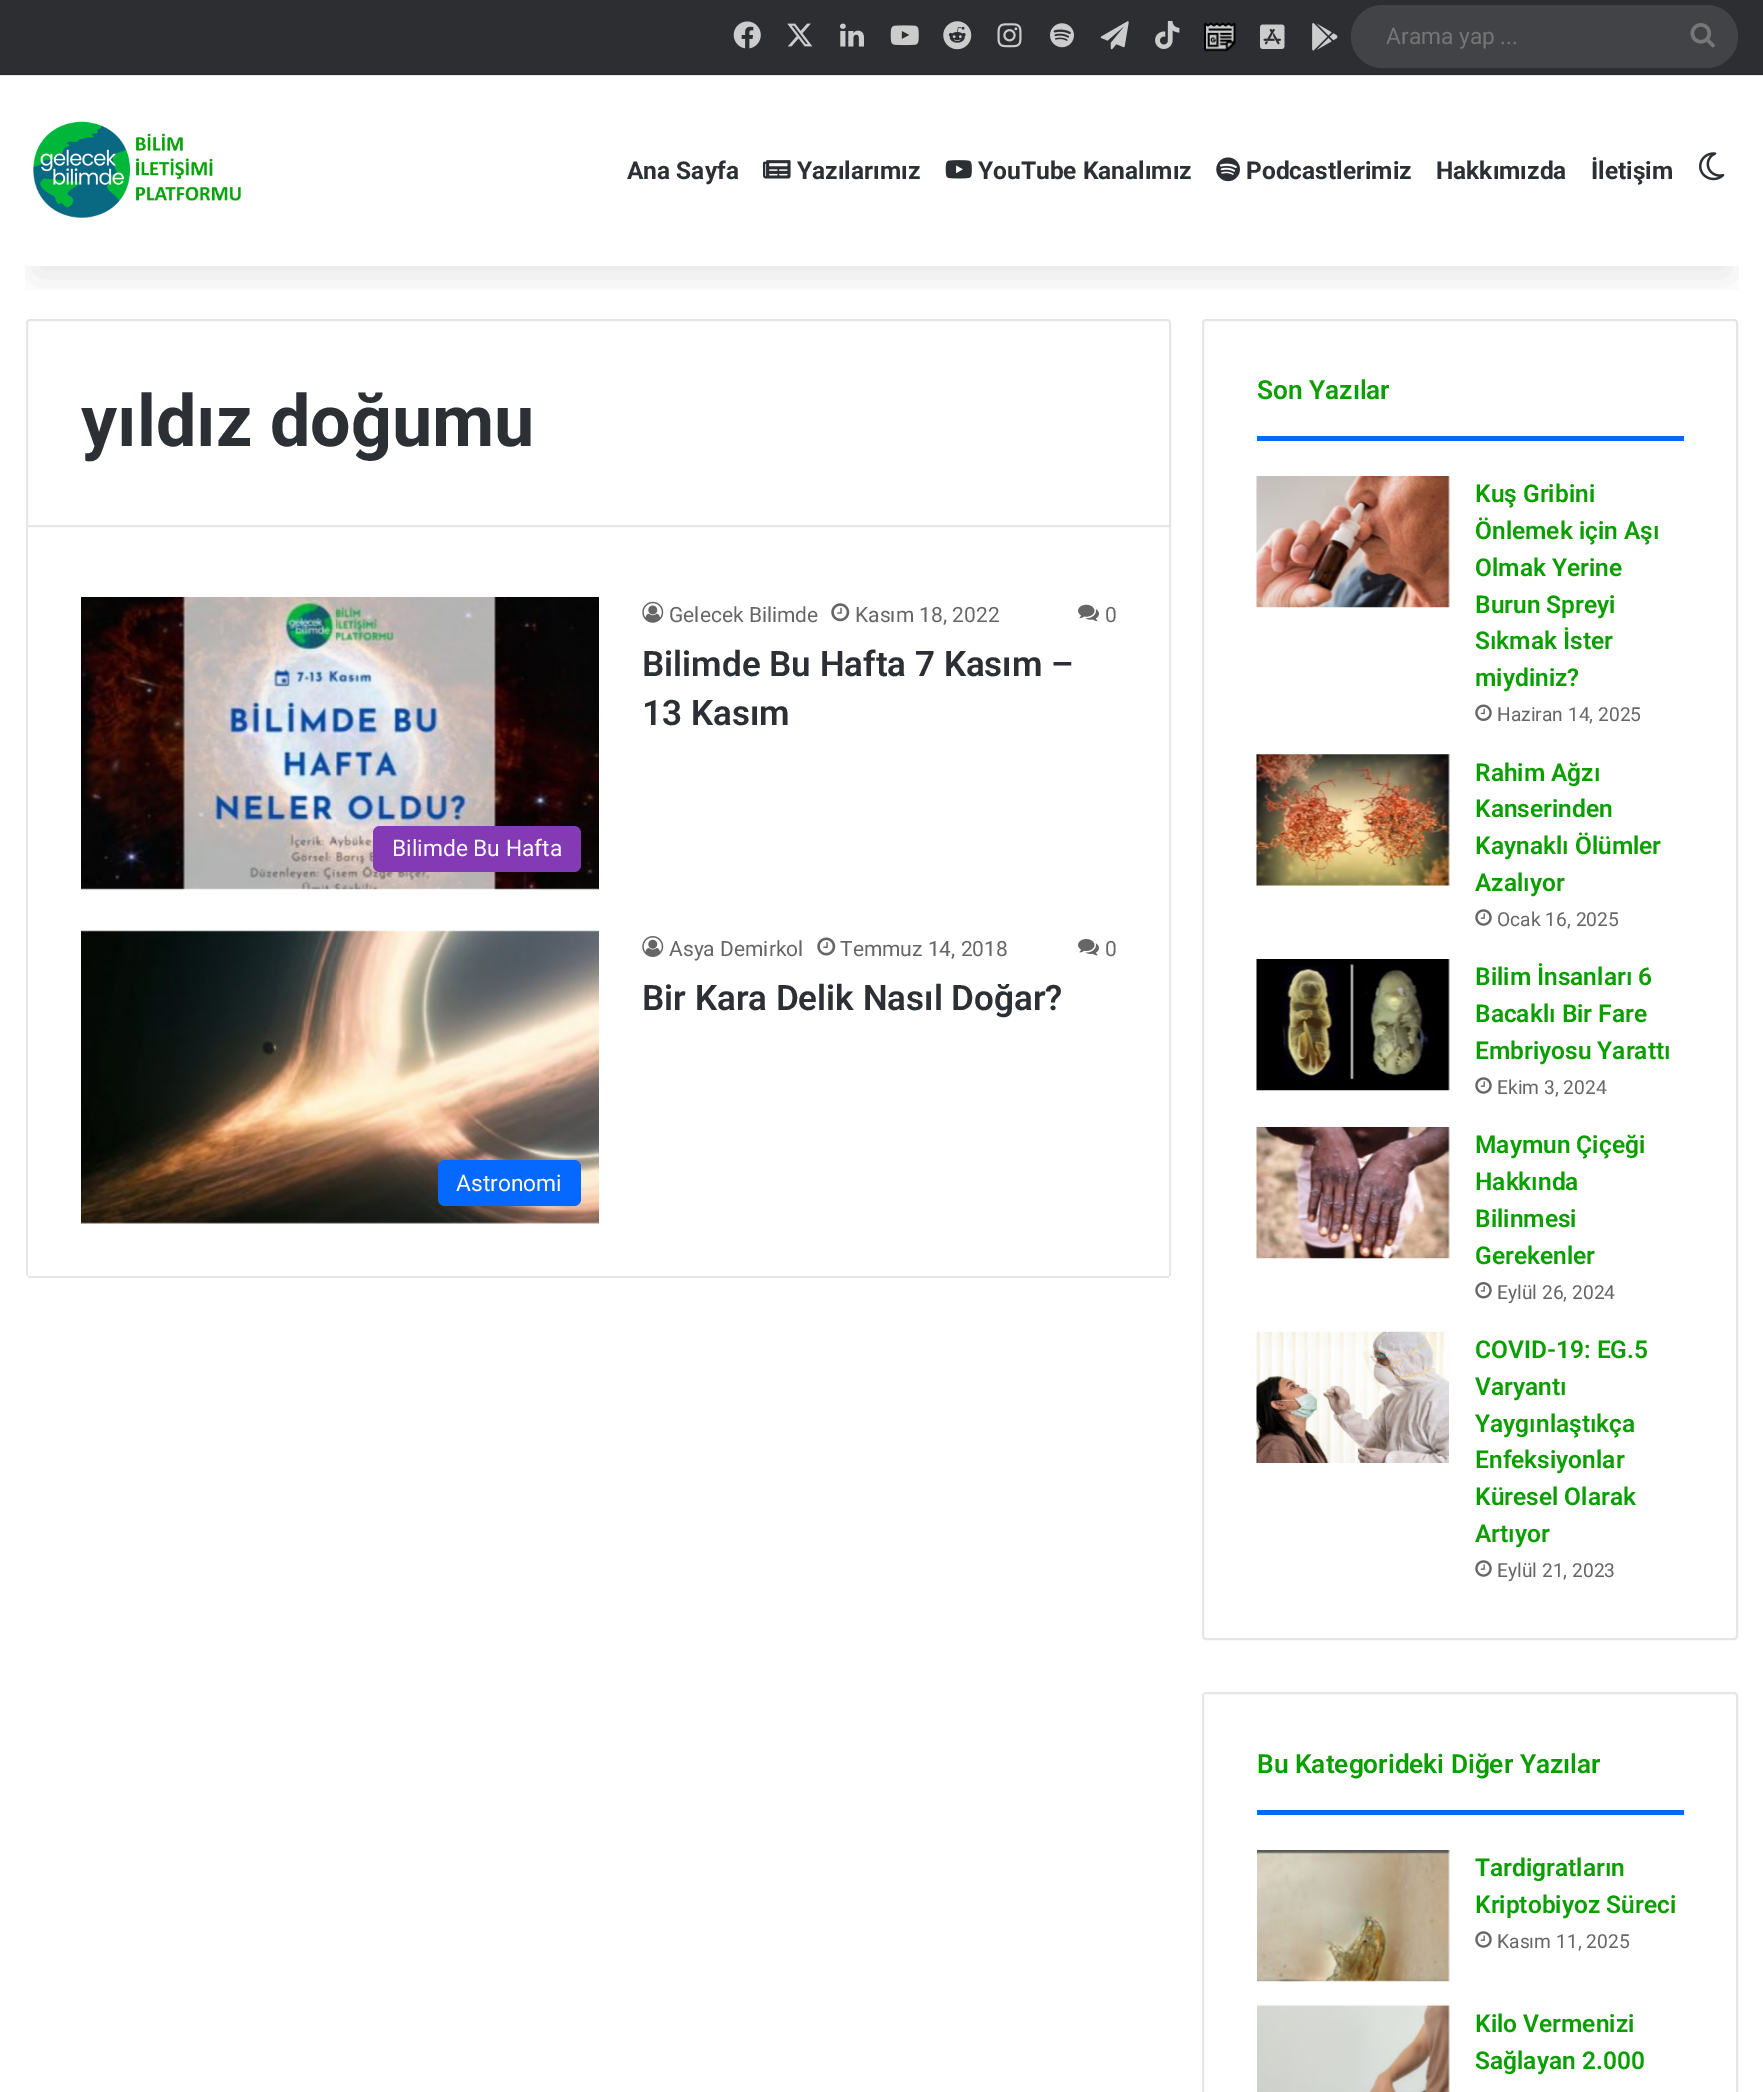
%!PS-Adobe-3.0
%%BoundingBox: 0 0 1763 2092
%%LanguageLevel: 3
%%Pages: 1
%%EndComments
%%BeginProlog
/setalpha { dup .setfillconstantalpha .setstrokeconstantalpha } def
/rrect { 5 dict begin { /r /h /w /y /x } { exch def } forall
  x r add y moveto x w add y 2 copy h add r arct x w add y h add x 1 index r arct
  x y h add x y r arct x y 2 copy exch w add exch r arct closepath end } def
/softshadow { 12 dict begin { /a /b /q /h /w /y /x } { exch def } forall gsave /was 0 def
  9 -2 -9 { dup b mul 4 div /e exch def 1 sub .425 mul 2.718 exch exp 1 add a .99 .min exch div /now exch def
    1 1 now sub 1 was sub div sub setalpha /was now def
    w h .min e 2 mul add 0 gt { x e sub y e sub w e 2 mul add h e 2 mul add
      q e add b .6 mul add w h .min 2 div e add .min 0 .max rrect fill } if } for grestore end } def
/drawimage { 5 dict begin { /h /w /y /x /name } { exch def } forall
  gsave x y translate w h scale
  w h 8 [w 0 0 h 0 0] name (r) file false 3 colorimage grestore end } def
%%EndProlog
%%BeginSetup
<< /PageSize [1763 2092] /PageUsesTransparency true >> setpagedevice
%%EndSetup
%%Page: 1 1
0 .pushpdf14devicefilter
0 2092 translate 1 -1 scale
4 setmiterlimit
1 setgray
0 0 1763 2092 rectfill
0.902 setgray
0 75 1763 1 rectfill
2 setlinewidth
newpath 30 320 moveto 1167 320 lineto 1168.5 320 1170 321.5 1170 323 curveto 1170 526 lineto 27 526 lineto 27 323 lineto 27 321.5 28.5 320 30 320 curveto closepath stroke
1203 320 534 1319 3 rrect stroke
gsave
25 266 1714 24 rectclip
0 setgray
35 79 1694 196 0 17.5 0.1 softshadow
grestore
0.173 0.18 0.196 setrgbcolor
0 0 1763 74 rectfill
0.157 0.161 0.176 setrgbcolor
0 74 1763 1 rectfill
(images/1.raw) 733 21 28 28 drawimage
(images/2.raw) 787 23 26 24 drawimage
(images/3.raw) 840 23 24 24 drawimage
(images/4.raw) 890 25 29 21 drawimage
(images/5.raw) 943 21 29 29 drawimage
(images/6.raw) 997 23 25 25 drawimage
(images/7.raw) 1050 23 24 25 drawimage
(images/8.raw) 1100 21 29 29 drawimage
(images/9.raw) 1155 21 25 28 drawimage
(images/10.raw) 1204 22 32 30 drawimage
(images/11.raw) 1260 24 25 25 drawimage
(images/12.raw) 1312 22 26 29 drawimage
0.255 0.263 0.278 setrgbcolor
1351 5 387 63 31.5 rrect fill
(images/13.raw) 1690 23 25 25 drawimage
(images/14.raw) 26 121 216 97 drawimage
(images/15.raw) 763 160 28 19 drawimage
(images/16.raw) 945 160 27 19 drawimage
(images/17.raw) 1216 157 24 25 drawimage
(images/18.raw) 1699 152 26 29 drawimage
0.902 setgray
1169 527 2 749 rectfill
28 1276 1141 2 rectfill
26 527 2 749 rectfill
(images/19.raw) 642 601 22 22 drawimage
(images/20.raw) 831 603 19 19 drawimage
(images/21.raw) 1078 604 21 18 drawimage
(images/22.raw) 81 597 518 293 drawimage
0.514 0.227 0.706 setrgbcolor
373 826 208 46 7 rrect fill
(images/23.raw) 642 936 22 21 drawimage
(images/24.raw) 817 937 19 19 drawimage
(images/25.raw) 1078 939 21 17 drawimage
(images/26.raw) 81 930 518 294 drawimage
0.024 0.412 1 setrgbcolor
438 1160 143 46 7 rrect fill
1257 436 427 5 rectfill
(images/27.raw) 1256 476 194 132 drawimage
(images/28.raw) 1475 704 17 17 drawimage
(images/29.raw) 1256 754 194 132 drawimage
(images/30.raw) 1475 909 17 17 drawimage
(images/31.raw) 1256 959 194 132 drawimage
(images/30.raw) 1475 1077 17 17 drawimage
(images/32.raw) 1256 1127 194 132 drawimage
(images/33.raw) 1475 1282 17 17 drawimage
(images/34.raw) 1256 1331 193 132 drawimage
(images/30.raw) 1475 1560 17 17 drawimage
0.902 setgray
1203 1693 534 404 3 rrect stroke
0.024 0.412 1 setrgbcolor
1257 1810 427 5 rectfill
(images/35.raw) 1257 1850 193 132 drawimage
(images/30.raw) 1475 1931 17 17 drawimage
(images/36.raw) 1257 2004 193 88 drawimage
/Roboto-Regular [22.75 0 0 -22.75 0 0] selectfont
0.459 setgray
1386 44 moveto (Arama yap ...) show
/Roboto-Bold [24.5 0 0 -24.5 0 0] selectfont
0.173 0.184 0.204 setrgbcolor
627 179 moveto (Ana Sayfa) show
797 179 moveto (Yazılarımız) show
978 179 moveto (YouTube Kanalımız) show
1246 179 moveto (Podcastlerimiz) show
1436 179 moveto (Hakkımızda) show
1591 179 moveto (İletişim) show
/Roboto-Bold [71.75 0 0 -71.75 0 0] selectfont
81 446 moveto (yıldız doğumu) show
/Roboto-Regular [21 0 0 -21 0 0] selectfont
0.4 setgray
669 622 moveto (Gelecek Bilimde) show
855 622 moveto (Kasım 18, 2022) show
1105 622 moveto (0) show
/Roboto-SemiBold [35 0 0 -35 0 0] selectfont
0.173 0.184 0.204 setrgbcolor
642 676 moveto (Bilimde Bu Hafta 7 Kasım –) show
642 725 moveto (13 Kasım) show
/Roboto-Regular [22.75 0 0 -22.75 0 0] selectfont
1 setgray
392 856 moveto (Bilimde Bu Hafta) show
/Roboto-Regular [21 0 0 -21 0 0] selectfont
0.4 setgray
669 956 moveto (Asya Demirkol) show
840 956 moveto (Temmuz 14, 2018) show
1105 956 moveto (0) show
/Roboto-SemiBold [35 0 0 -35 0 0] selectfont
0.173 0.184 0.204 setrgbcolor
642 1010 moveto (Bir Kara Delik Nasıl Doğar?) show
/Roboto-Regular [22.75 0 0 -22.75 0 0] selectfont
1 setgray
456 1191 moveto (Astronomi) show
/Roboto-SemiBold [26.25 0 0 -26.25 0 0] selectfont
0.039 0.62 0.004 setrgbcolor
1257 399 moveto (Son Yazılar) show
/Roboto-SemiBold [24.5 0 0 -24.5 0 0] selectfont
1475 502 moveto (Kuş Gribini) show
1475 539 moveto (Önlemek için Aşı) show
1475 576 moveto (Olmak Yerine) show
1475 613 moveto (Burun Spreyi) show
1475 649 moveto (Sıkmak İster) show
1475 686 moveto (miydiniz?) show
/Roboto-Regular [19.25 0 0 -19.25 0 0] selectfont
0.4 setgray
1497 721 moveto (Haziran 14, 2025) show
/Roboto-SemiBold [24.5 0 0 -24.5 0 0] selectfont
0.039 0.62 0.004 setrgbcolor
1475 781 moveto (Rahim Ağzı) show
1475 817 moveto (Kanserinden) show
1475 854 moveto (Kaynaklı Ölümler) show
1475 891 moveto (Azalıyor) show
/Roboto-Regular [19.25 0 0 -19.25 0 0] selectfont
0.4 setgray
1497 926 moveto (Ocak 16, 2025) show
/Roboto-SemiBold [24.5 0 0 -24.5 0 0] selectfont
0.039 0.62 0.004 setrgbcolor
1475 985 moveto (Bilim İnsanları 6) show
1475 1022 moveto (Bacaklı Bir Fare) show
1475 1059 moveto (Embriyosu Yarattı) show
/Roboto-Regular [19.25 0 0 -19.25 0 0] selectfont
0.4 setgray
1497 1094 moveto (Ekim 3, 2024) show
/Roboto-SemiBold [24.5 0 0 -24.5 0 0] selectfont
0.039 0.62 0.004 setrgbcolor
1475 1153 moveto (Maymun Çiçeği) show
1475 1190 moveto (Hakkında) show
1475 1227 moveto (Bilinmesi) show
1475 1264 moveto (Gerekenler) show
/Roboto-Regular [19.25 0 0 -19.25 0 0] selectfont
0.4 setgray
1497 1299 moveto (Eylül 26, 2024) show
/Roboto-SemiBold [24.5 0 0 -24.5 0 0] selectfont
0.039 0.62 0.004 setrgbcolor
1475 1358 moveto (COVID-19: EG.5) show
1475 1395 moveto (Varyantı) show
1475 1432 moveto (Yaygınlaştıkça) show
1475 1468 moveto (Enfeksiyonlar) show
1475 1505 moveto (Küresel Olarak) show
1475 1542 moveto (Artıyor) show
/Roboto-Regular [19.25 0 0 -19.25 0 0] selectfont
0.4 setgray
1497 1577 moveto (Eylül 21, 2023) show
/Roboto-SemiBold [26.25 0 0 -26.25 0 0] selectfont
0.039 0.62 0.004 setrgbcolor
1257 1773 moveto (Bu Kategorideki Diğer Yazılar) show
/Roboto-SemiBold [24.5 0 0 -24.5 0 0] selectfont
1475 1876 moveto (Tardigratların) show
1475 1913 moveto (Kriptobiyoz Süreci) show
/Roboto-Regular [19.25 0 0 -19.25 0 0] selectfont
0.4 setgray
1497 1948 moveto (Kasım 11, 2025) show
/Roboto-SemiBold [24.5 0 0 -24.5 0 0] selectfont
0.039 0.62 0.004 setrgbcolor
1475 2032 moveto (Kilo Vermenizi) show
1475 2069 moveto (Sağlayan 2.000) show
.poppdf14devicefilter showpage
%%EOF
